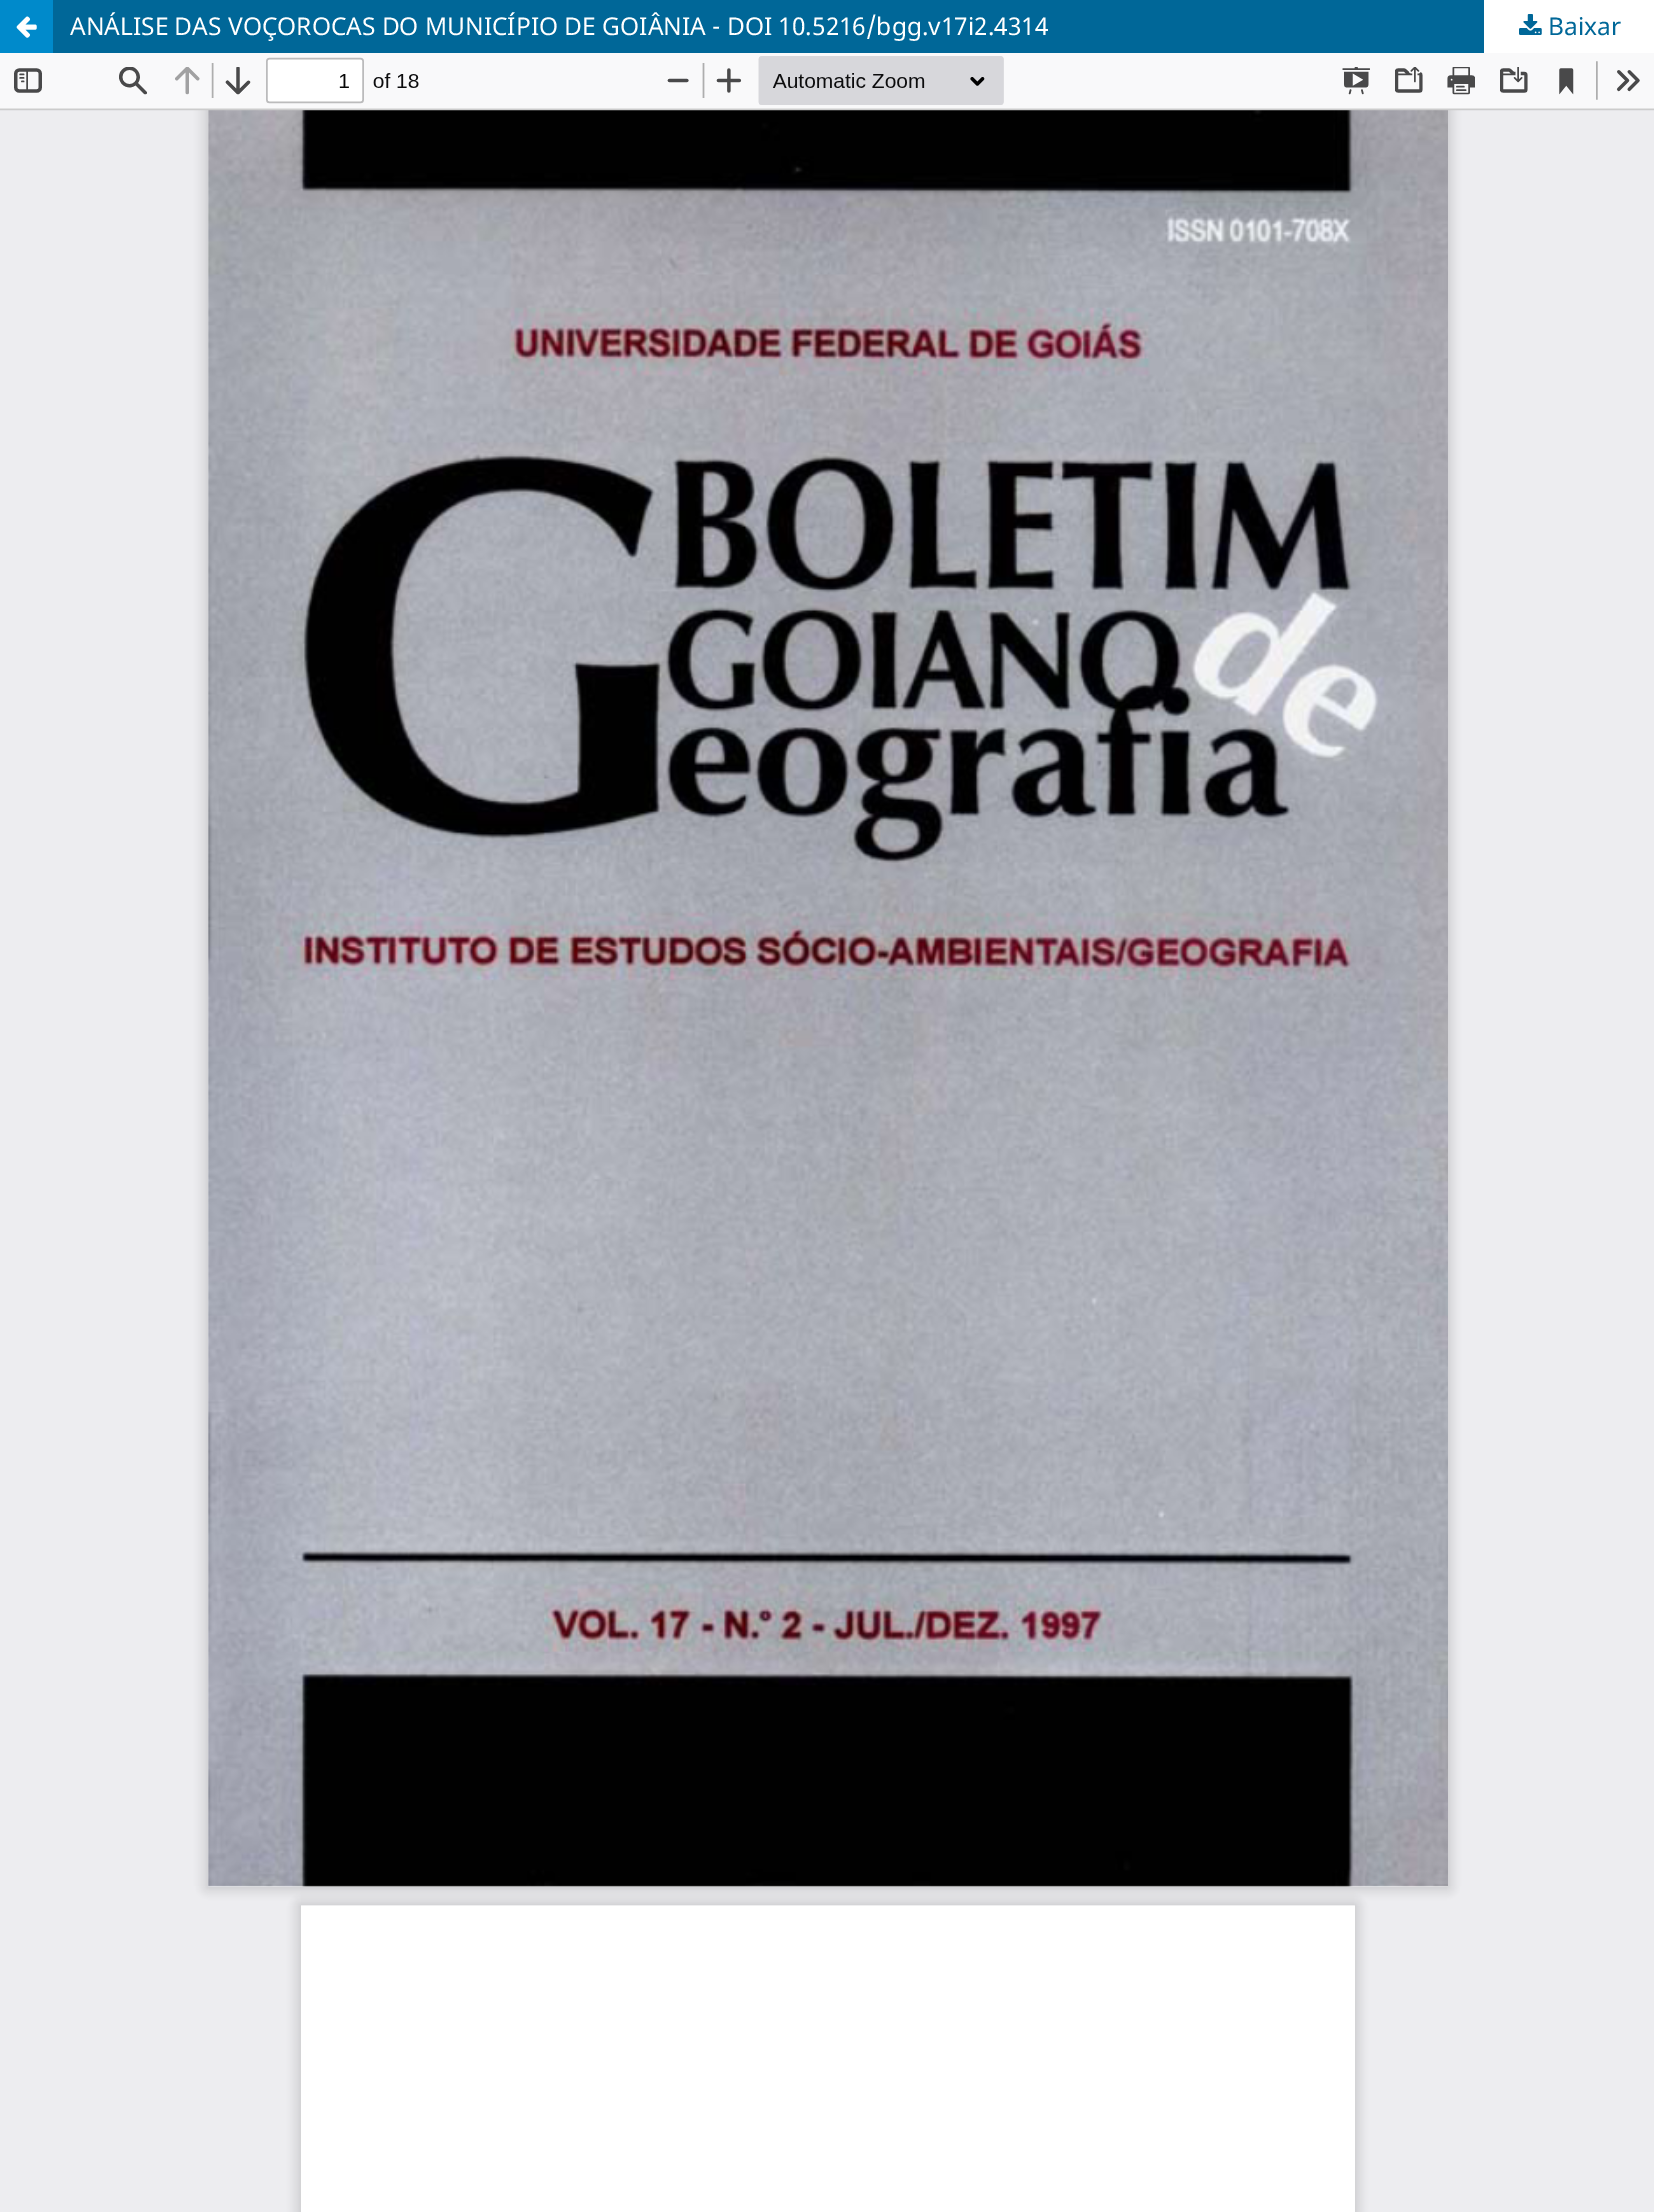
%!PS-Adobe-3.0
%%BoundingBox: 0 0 1654 2212
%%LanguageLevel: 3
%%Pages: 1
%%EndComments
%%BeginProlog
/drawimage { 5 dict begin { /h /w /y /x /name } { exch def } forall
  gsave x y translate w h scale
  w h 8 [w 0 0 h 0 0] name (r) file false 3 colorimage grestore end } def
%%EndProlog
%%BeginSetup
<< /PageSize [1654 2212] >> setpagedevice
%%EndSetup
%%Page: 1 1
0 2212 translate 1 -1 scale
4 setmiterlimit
1 setgray
0 0 1654 2212 rectfill
0 0.404 0.596 setrgbcolor
53 0 1431 53 rectfill
0 0.541 0.796 setrgbcolor
0 0 53 53 rectfill
(images/1.raw) 16 16 21 22 drawimage
(images/2.raw) 1519 14 23 21 drawimage
(images/3.raw) 0 53 1654 2159 drawimage
/NotoSans-Regular [24.5 0 0 -24.5 0 0] selectfont
1 setgray
70 35 moveto (ANÁLISE DAS VOÇOROCAS DO MUNICÍPIO DE GOIÂNIA - DOI 10.5216/bgg.v17i2.4314) show
0 0.404 0.596 setrgbcolor
1548 35 moveto (Baixar) show
showpage
%%EOF
